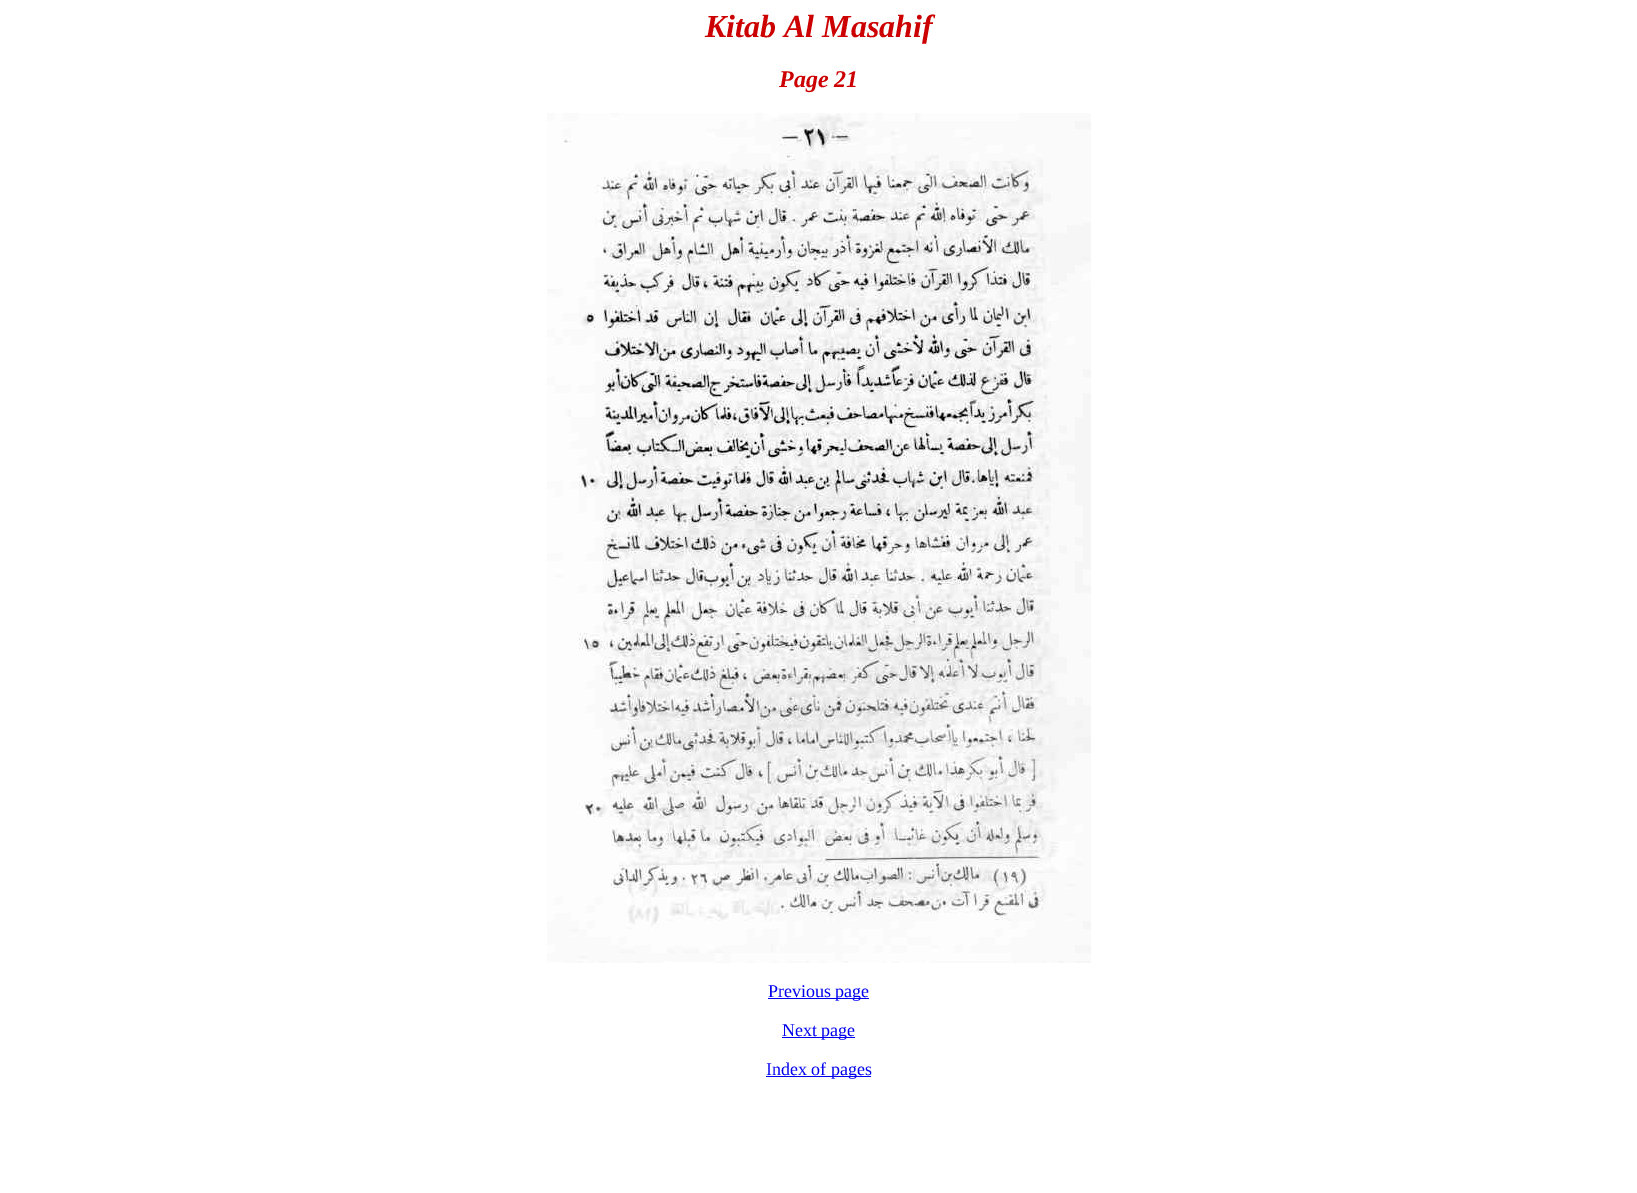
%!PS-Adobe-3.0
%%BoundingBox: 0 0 1637 1193
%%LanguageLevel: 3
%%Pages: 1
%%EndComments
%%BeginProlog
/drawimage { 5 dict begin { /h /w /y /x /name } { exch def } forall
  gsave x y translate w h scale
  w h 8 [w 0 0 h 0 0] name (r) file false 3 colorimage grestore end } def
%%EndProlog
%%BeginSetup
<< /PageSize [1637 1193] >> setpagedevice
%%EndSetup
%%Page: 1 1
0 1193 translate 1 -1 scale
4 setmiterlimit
1 setgray
0 0 1637 1193 rectfill
(images/1.raw) 547 113 544 850 drawimage
0 0 0.933 setrgbcolor
768 998 101 1 rectfill
782 1037 73 1 rectfill
766 1076 105 1 rectfill
/LiberationSerif-BoldItalic [32 0 0 -32 0 0] selectfont
0.8 0 0 setrgbcolor
705 37 moveto (Kitab Al Masahif) show
/LiberationSerif-BoldItalic [24 0 0 -24 0 0] selectfont
779 87 moveto (Page 21) show
/LiberationSerif-Regular [18 0 0 -18 0 0] selectfont
0 0 0.933 setrgbcolor
768 997 moveto (Previous page) show
782 1036 moveto (Next page) show
766 1075 moveto (Index of pages) show
showpage
%%EOF
